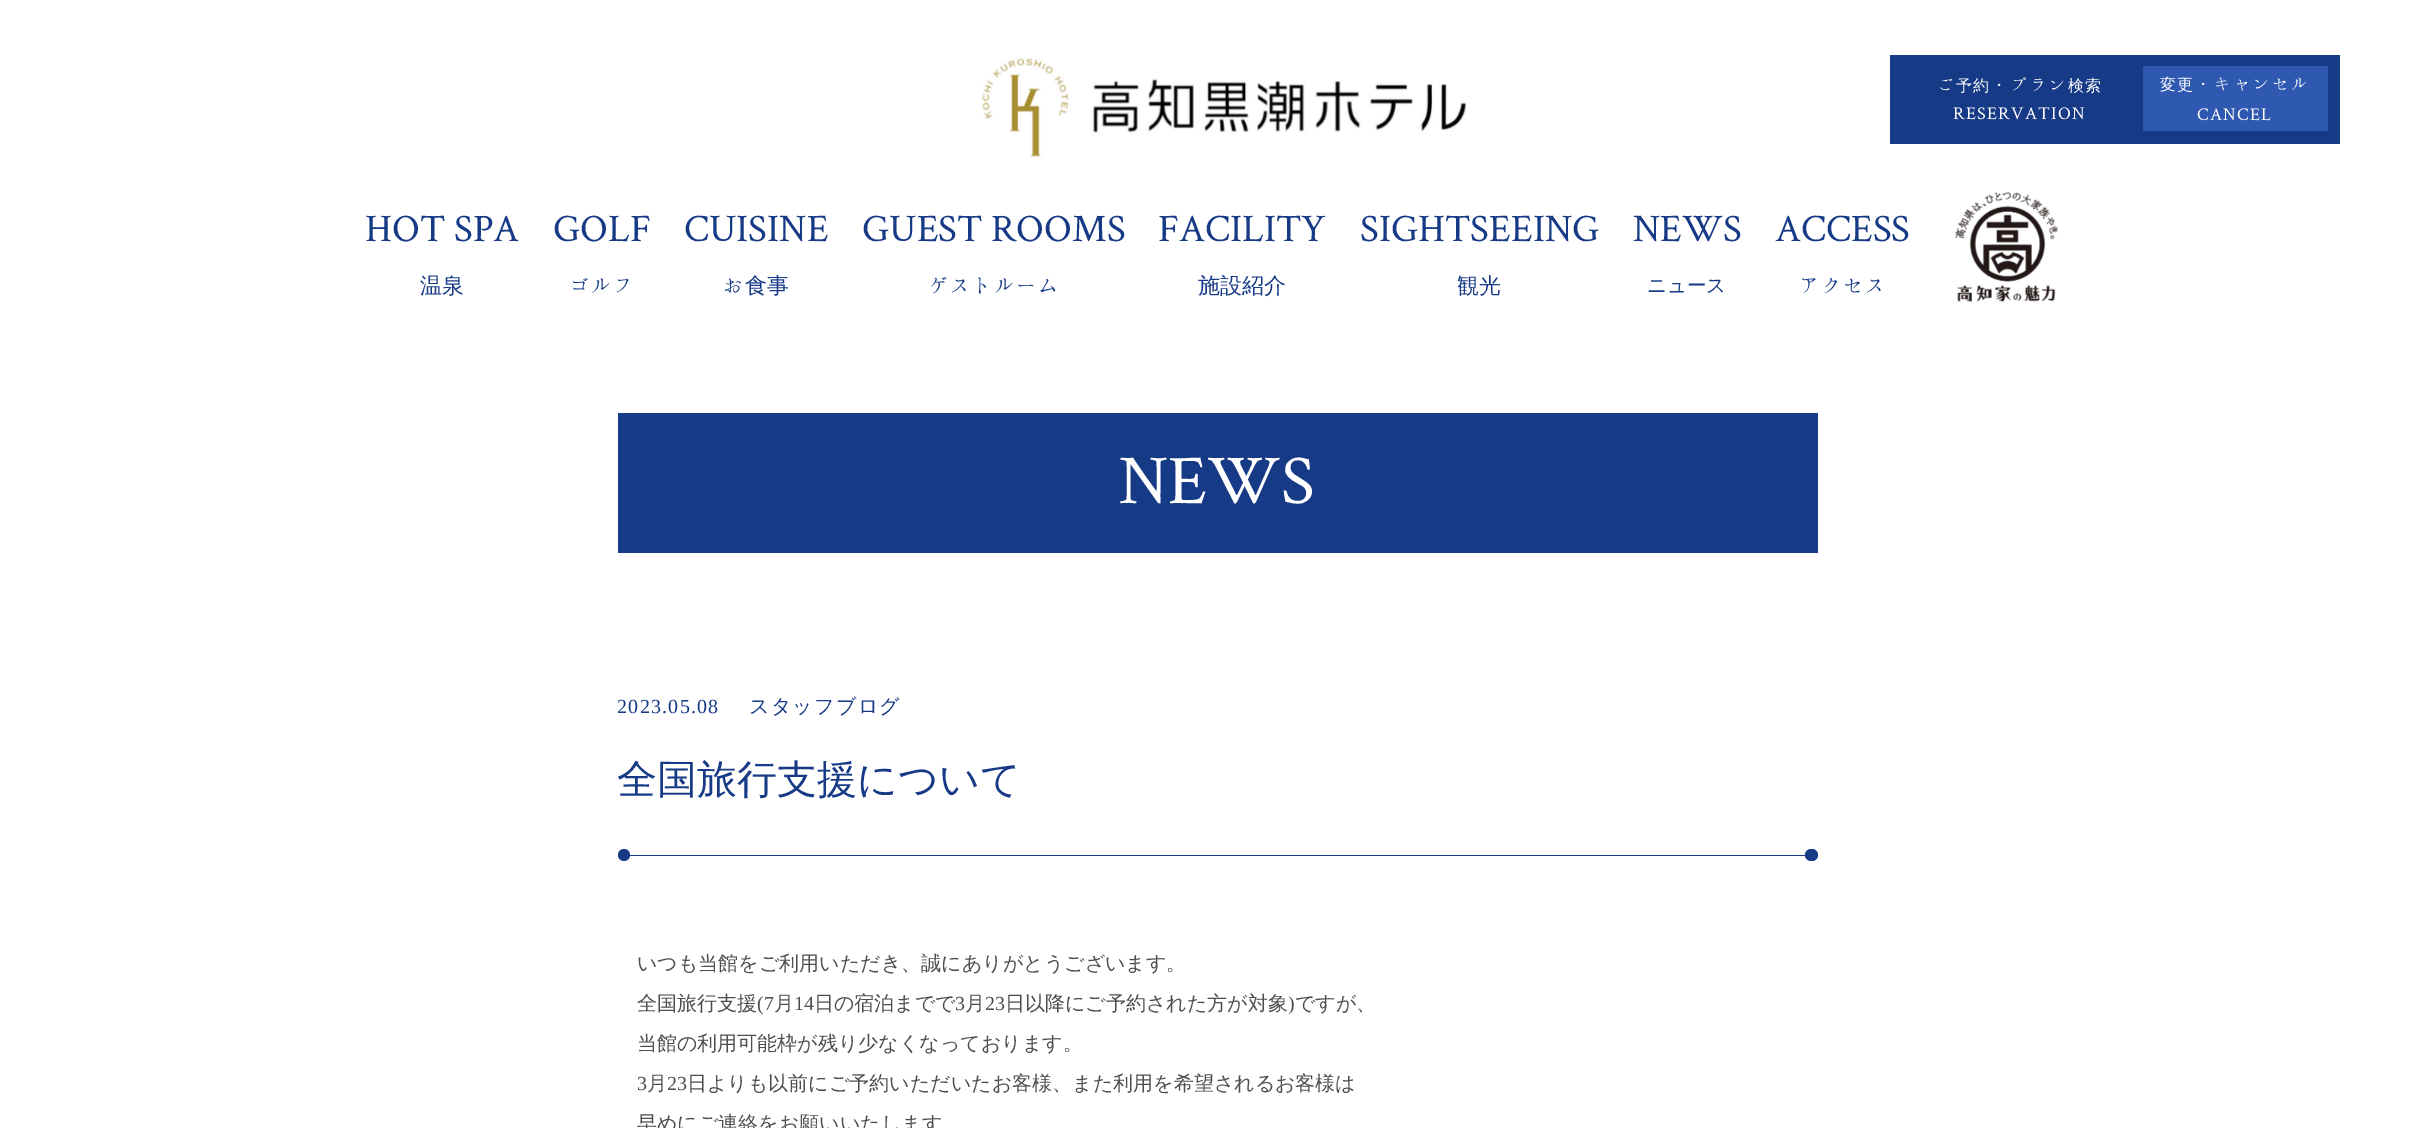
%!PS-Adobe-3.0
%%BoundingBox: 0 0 2433 1128
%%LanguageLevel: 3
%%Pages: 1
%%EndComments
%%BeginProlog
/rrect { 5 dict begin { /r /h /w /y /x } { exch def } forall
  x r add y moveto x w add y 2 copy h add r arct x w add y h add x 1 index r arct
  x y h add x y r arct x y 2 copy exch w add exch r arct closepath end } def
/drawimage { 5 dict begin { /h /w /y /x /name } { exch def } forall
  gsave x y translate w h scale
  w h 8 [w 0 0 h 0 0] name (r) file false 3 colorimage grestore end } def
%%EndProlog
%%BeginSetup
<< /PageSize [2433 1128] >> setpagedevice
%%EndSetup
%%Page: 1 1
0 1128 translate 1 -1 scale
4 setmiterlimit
1 setgray
0 0 2433 1128 rectfill
0.09 0.227 0.529 setrgbcolor
1890 55 450 89 rectfill
0.184 0.345 0.694 setrgbcolor
2143 66 185 65 rectfill
(images/1.raw) 981 58 486 99 drawimage
(images/2.raw) 1954 191 104 111 drawimage
0.09 0.227 0.529 setrgbcolor
618 413 1200 140 rectfill
618 855 1200 1 rectfill
newpath 624 855 6 0 360 arc closepath fill
1805 849 13 12 6 rrect fill
/Hannari-Regular [18 0 0 -18 0 0] selectfont
1 setgray
1937 91 moveto 1.25 0 (ご) ashow
/WenQuanYiZenHei-Medium [16 0 0 -16 0 0] selectfont
1956 91 moveto 1.25 0 (予約) ashow
/Hannari-Regular [18 0 0 -18 0 0] selectfont
1991 91 moveto 1.25 0 (・プラン) ashow
/WenQuanYiZenHei-Medium [16 0 0 -16 0 0] selectfont
2068 91 moveto 1.25 0 (検索) ashow
/CrimsonText-Regular [18 0 0 -18 0 0] selectfont
1953 119 moveto 1.25 0 (RESERVATION) ashow
/WenQuanYiZenHei-Medium [16 0 0 -16 0 0] selectfont
2160 90 moveto 1.25 0 (変更) ashow
/Hannari-Regular [18 0 0 -18 0 0] selectfont
2195 90 moveto 1.25 0 (・キャンセル) ashow
/CrimsonText-Regular [18 0 0 -18 0 0] selectfont
2197 120 moveto 1.25 0 (CANCEL) ashow
/CrimsonText-Regular [39 0 0 -39 0 0] selectfont
0.09 0.227 0.529 setrgbcolor
365 241 moveto (HOT SPA) show
/WenQuanYiZenHei-Medium [22 0 0 -22 0 0] selectfont
420 293 moveto (温泉) show
/CrimsonText-Regular [39 0 0 -39 0 0] selectfont
553 241 moveto (GOLF) show
/Hannari-Regular [22 0 0 -22 0 0] selectfont
569 293 moveto (ゴルフ) show
/CrimsonText-Regular [39 0 0 -39 0 0] selectfont
684 241 moveto (CUISINE) show
/Hannari-Regular [22 0 0 -22 0 0] selectfont
723 293 moveto (お) show
/WenQuanYiZenHei-Medium [22 0 0 -22 0 0] selectfont
745 293 moveto (食事) show
/CrimsonText-Regular [39 0 0 -39 0 0] selectfont
862 241 moveto (GUEST ROOMS) show
/Hannari-Regular [22 0 0 -22 0 0] selectfont
928 293 moveto (ゲストルーム) show
/CrimsonText-Regular [39 0 0 -39 0 0] selectfont
1158 241 moveto (FACILITY) show
/WenQuanYiZenHei-Medium [22 0 0 -22 0 0] selectfont
1198 293 moveto (施設紹介) show
/CrimsonText-Regular [39 0 0 -39 0 0] selectfont
1360 241 moveto (SIGHTSEEING) show
/WenQuanYiZenHei-Medium [22 0 0 -22 0 0] selectfont
1457 293 moveto (観光) show
/CrimsonText-Regular [39 0 0 -39 0 0] selectfont
1633 241 moveto (NEWS) show
/WenQuanYiZenHei-Medium [19.5 0 0 -19.5 0 0] selectfont
1647 292 moveto (ニュース) show
/CrimsonText-Regular [39 0 0 -39 0 0] selectfont
1775 241 moveto (ACCESS) show
/Hannari-Regular [22 0 0 -22 0 0] selectfont
1799 293 moveto (アクセス) show
/CrimsonText-Regular [70 0 0 -70 0 0] selectfont
1 setgray
1119 503 moveto (NEWS) show
/LiberationSerif-Regular [20 0 0 -20 0 0] selectfont
0.09 0.227 0.529 setrgbcolor
617 713 moveto 1.25 0 (2023.05.08) ashow
/WenQuanYiZenHei-Medium [20 0 0 -20 0 0] selectfont
749 713 moveto 1.25 0 (スタッフブログ) ashow
/WenQuanYiZenHei-Medium [40 0 0 -40 0 0] selectfont
617 793 moveto (全国旅行支援について) show
/WenQuanYiZenHei-Medium [20 0 0 -20 0 0] selectfont
0.302 setgray
637 970 moveto (いつも当館をご利用いただき、誠にありがとうございます。) show
637 1010 moveto (全国旅行支援) show
/LiberationSerif-Regular [20 0 0 -20 0 0] selectfont
757 1010 moveto (\(7) show
/WenQuanYiZenHei-Medium [20 0 0 -20 0 0] selectfont
774 1010 moveto (月) show
/LiberationSerif-Regular [20 0 0 -20 0 0] selectfont
794 1010 moveto (14) show
/WenQuanYiZenHei-Medium [20 0 0 -20 0 0] selectfont
814 1010 moveto (日の宿泊までで) show
/LiberationSerif-Regular [20 0 0 -20 0 0] selectfont
955 1010 moveto (3) show
/WenQuanYiZenHei-Medium [20 0 0 -20 0 0] selectfont
965 1010 moveto (月) show
/LiberationSerif-Regular [20 0 0 -20 0 0] selectfont
985 1010 moveto (23) show
/WenQuanYiZenHei-Medium [20 0 0 -20 0 0] selectfont
1005 1010 moveto (日以降にご予約された方が対象) show
/LiberationSerif-Regular [20 0 0 -20 0 0] selectfont
1288 1010 moveto (\)) show
/WenQuanYiZenHei-Medium [20 0 0 -20 0 0] selectfont
1295 1010 moveto (ですが、) show
637 1050 moveto (当館の利用可能枠が残り少なくなっております。) show
/LiberationSerif-Regular [20 0 0 -20 0 0] selectfont
637 1090 moveto (3) show
/WenQuanYiZenHei-Medium [20 0 0 -20 0 0] selectfont
647 1090 moveto (月) show
/LiberationSerif-Regular [20 0 0 -20 0 0] selectfont
667 1090 moveto (23) show
/WenQuanYiZenHei-Medium [20 0 0 -20 0 0] selectfont
687 1090 moveto (日よりも以前にご予約いただいたお客様、また利用を希望されるお客様は) show
637 1130 moveto (早めにご連絡をお願いいたします) show
showpage
%%EOF
